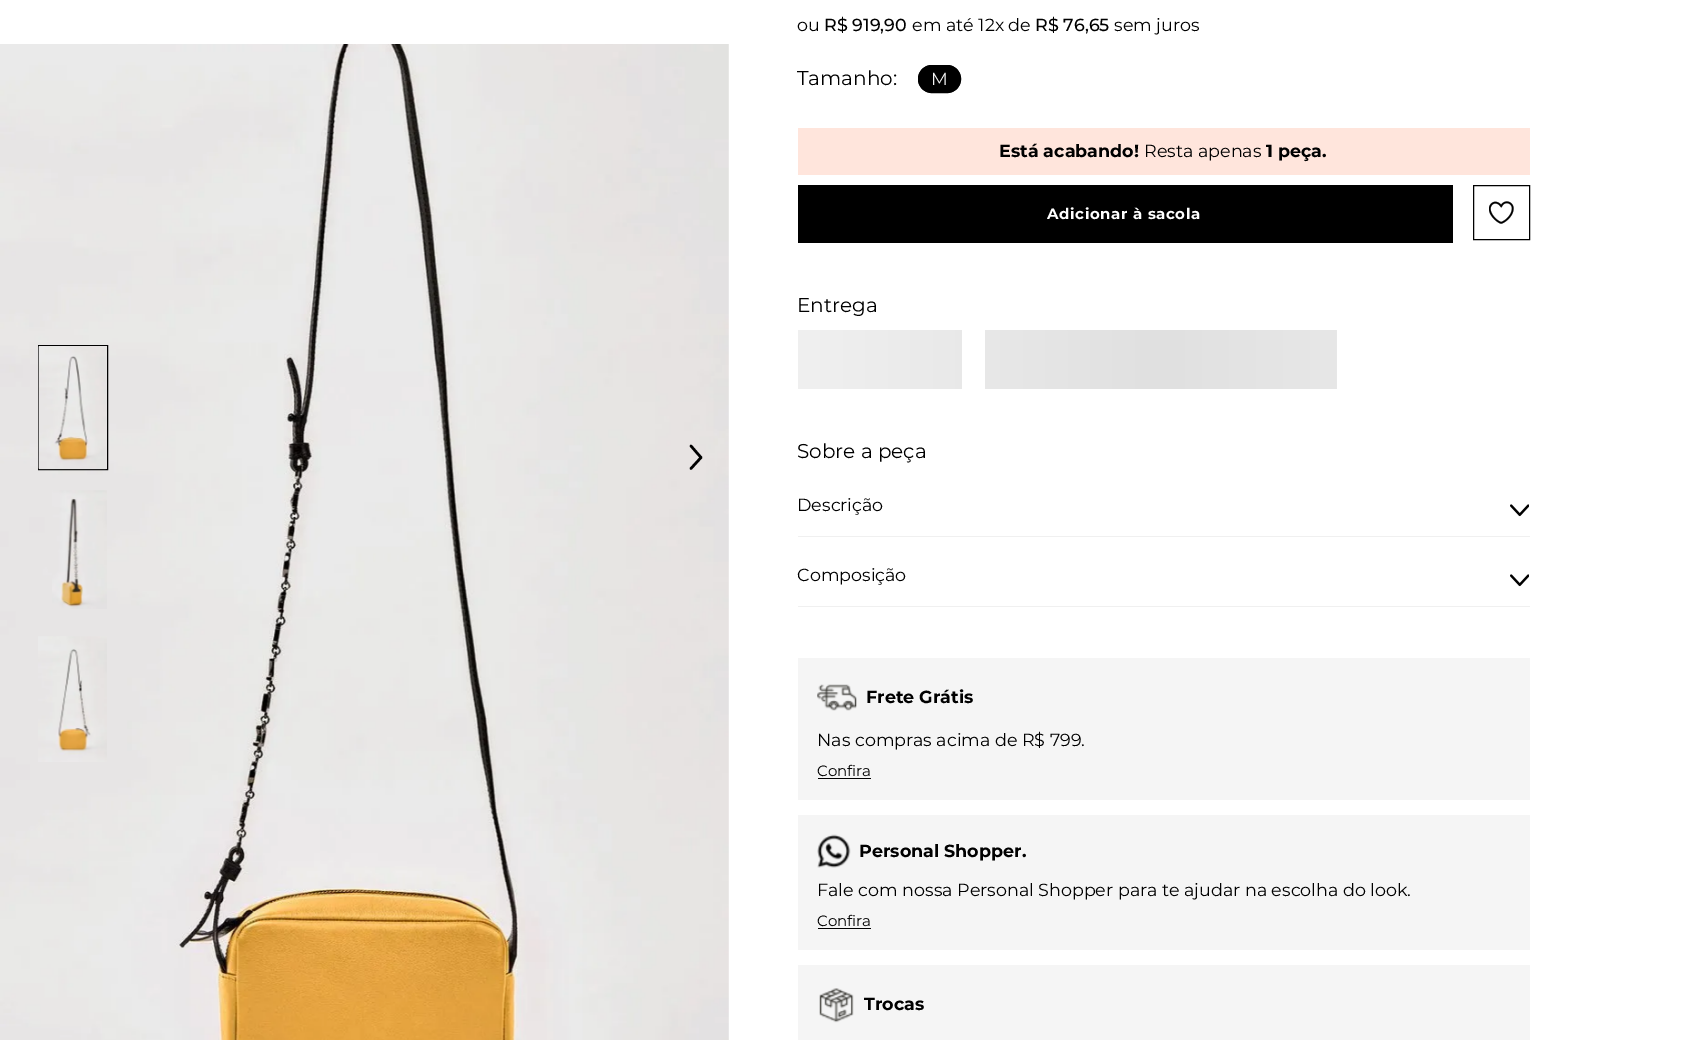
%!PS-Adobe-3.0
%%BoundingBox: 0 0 1683 1040
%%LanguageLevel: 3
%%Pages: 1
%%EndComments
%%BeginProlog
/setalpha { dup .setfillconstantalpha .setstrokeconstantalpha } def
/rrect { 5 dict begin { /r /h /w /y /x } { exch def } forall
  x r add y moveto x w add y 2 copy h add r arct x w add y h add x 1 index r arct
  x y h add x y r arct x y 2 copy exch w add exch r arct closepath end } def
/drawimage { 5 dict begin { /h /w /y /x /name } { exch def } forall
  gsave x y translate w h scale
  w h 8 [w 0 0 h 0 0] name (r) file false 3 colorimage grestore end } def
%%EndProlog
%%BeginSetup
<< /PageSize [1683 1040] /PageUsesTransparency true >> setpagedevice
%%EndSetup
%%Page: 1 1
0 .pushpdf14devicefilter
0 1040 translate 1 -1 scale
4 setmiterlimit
1 setgray
0 0 1683 1040 rectfill
(images/1.raw) 0 44 729 996 drawimage
0 setgray
2.5 setlinewidth
1 setlinecap
1 setlinejoin
newpath 691 468.5 moveto 701 457.5 lineto 691 446 lineto stroke
1 setlinewidth
0 setlinecap
0 setlinejoin
38.5 345.5 69 124 rectstroke
(images/2.raw) 38 346 69 124 drawimage
(images/3.raw) 52 490 55 119 drawimage
(images/4.raw) 38 636 69 126 drawimage
918 65 43 28 14 rrect fill
0.99 setalpha
918.5 65.5 42 27 13.5 rrect stroke
1 setalpha
1 0.898 0.863 setrgbcolor
798 128 732 47 rectfill
0 setgray
798 185 655 58 rectfill
1473.5 185.5 56 54 rectstroke
(images/5.raw) 1489 201 25 23 drawimage
gsave newpath 985 330 moveto 985 389 lineto 1337 389 lineto 1337 330 lineto closepath 798 330 moveto 798 389 lineto 962 389 lineto 962 330 lineto closepath eoclip newpath
<< /ShadingType 2 /ColorSpace /DeviceRGB /Coords [798 330 1530 330] /Extend [true true] /Function << /FunctionType 3 /Domain [0 1] /Functions [<< /FunctionType 2 /Domain [0 1] /C0 [0.941 0.941 0.941] /C1 [0.878 0.878 0.878] /N 1 >> << /FunctionType 2 /Domain [0 1] /C0 [0.878 0.878 0.878] /C1 [0.941 0.941 0.941] /N 1 >>] /Bounds [0.5] /Encode [0 1 0 1] >> >> shfill grestore
0.941 setgray
798 536 732 1 rectfill
(images/6.raw) 1510 504 19 13 drawimage
798 606 732 1 rectfill
(images/6.raw) 1510 574 19 13 drawimage
0.961 setgray
798 658 732 142 rectfill
(images/7.raw) 817 684 40 27 drawimage
0 setgray
818 778 53 1 rectfill
0.961 setgray
798 815 732 135 rectfill
(images/8.raw) 817 834 34 34 drawimage
0 setgray
818 928 53 1 rectfill
0.961 setgray
798 965 732 75 rectfill
(images/9.raw) 819 988 35 35 drawimage
/Montserrat-Regular [17.5 0 0 -17.5 0 0] selectfont
0 setgray
797 31 moveto (ou) show
/Montserrat-Medium [17.5 0 0 -17.5 0 0] selectfont
824 31 moveto (R$ 919,90) show
/Montserrat-Regular [17.5 0 0 -17.5 0 0] selectfont
912 31 moveto (em até 12x de) show
/Montserrat-Medium [17.5 0 0 -17.5 0 0] selectfont
1035 31 moveto (R$ 76,65) show
/Montserrat-Regular [17.5 0 0 -17.5 0 0] selectfont
1114 31 moveto (sem juros) show
/Montserrat-Regular [20 0 0 -20 0 0] selectfont
797 85 moveto (Tamanho:) show
/Montserrat-Regular [17.5 0 0 -17.5 0 0] selectfont
0.961 setgray
931 85 moveto (M) show
/Montserrat-Bold [17.5 0 0 -17.5 0 0] selectfont
0 setgray
999 157 moveto (Está acabando!) show
/Montserrat-Regular [17.5 0 0 -17.5 0 0] selectfont
1144 157 moveto (Resta apenas) show
/Montserrat-Bold [17.5 0 0 -17.5 0 0] selectfont
1266 157 moveto (1 peça.) show
/Montserrat-Bold [15 0 0 -15 0 0] selectfont
1 setgray
1047 219 moveto 0.6 0 (Adicionar à sacola) ashow
/Montserrat-Regular [20 0 0 -20 0 0] selectfont
0 setgray
797 312 moveto (Entrega) show
797 458 moveto (Sobre a peça) show
/Montserrat-Regular [17.5 0 0 -17.5 0 0] selectfont
797 511 moveto (Descrição) show
797 581 moveto (Composição) show
/Montserrat-Bold [17.5 0 0 -17.5 0 0] selectfont
866 703 moveto (Frete Grátis) show
/Montserrat-Regular [17.5 0 0 -17.5 0 0] selectfont
817 746 moveto (Nas compras acima de R$ 799.) show
/Montserrat-Regular [15 0 0 -15 0 0] selectfont
817 776 moveto (Confira) show
/Montserrat-Bold [17.5 0 0 -17.5 0 0] selectfont
859 857 moveto (Personal Shopper.) show
/Montserrat-Regular [17.5 0 0 -17.5 0 0] selectfont
817 896 moveto (Fale com nossa Personal Shopper para te ajudar na escolha do look.) show
/Montserrat-Regular [15 0 0 -15 0 0] selectfont
817 926 moveto (Confira) show
/Montserrat-Bold [17.5 0 0 -17.5 0 0] selectfont
864 1010 moveto (Trocas) show
.poppdf14devicefilter showpage
%%EOF
